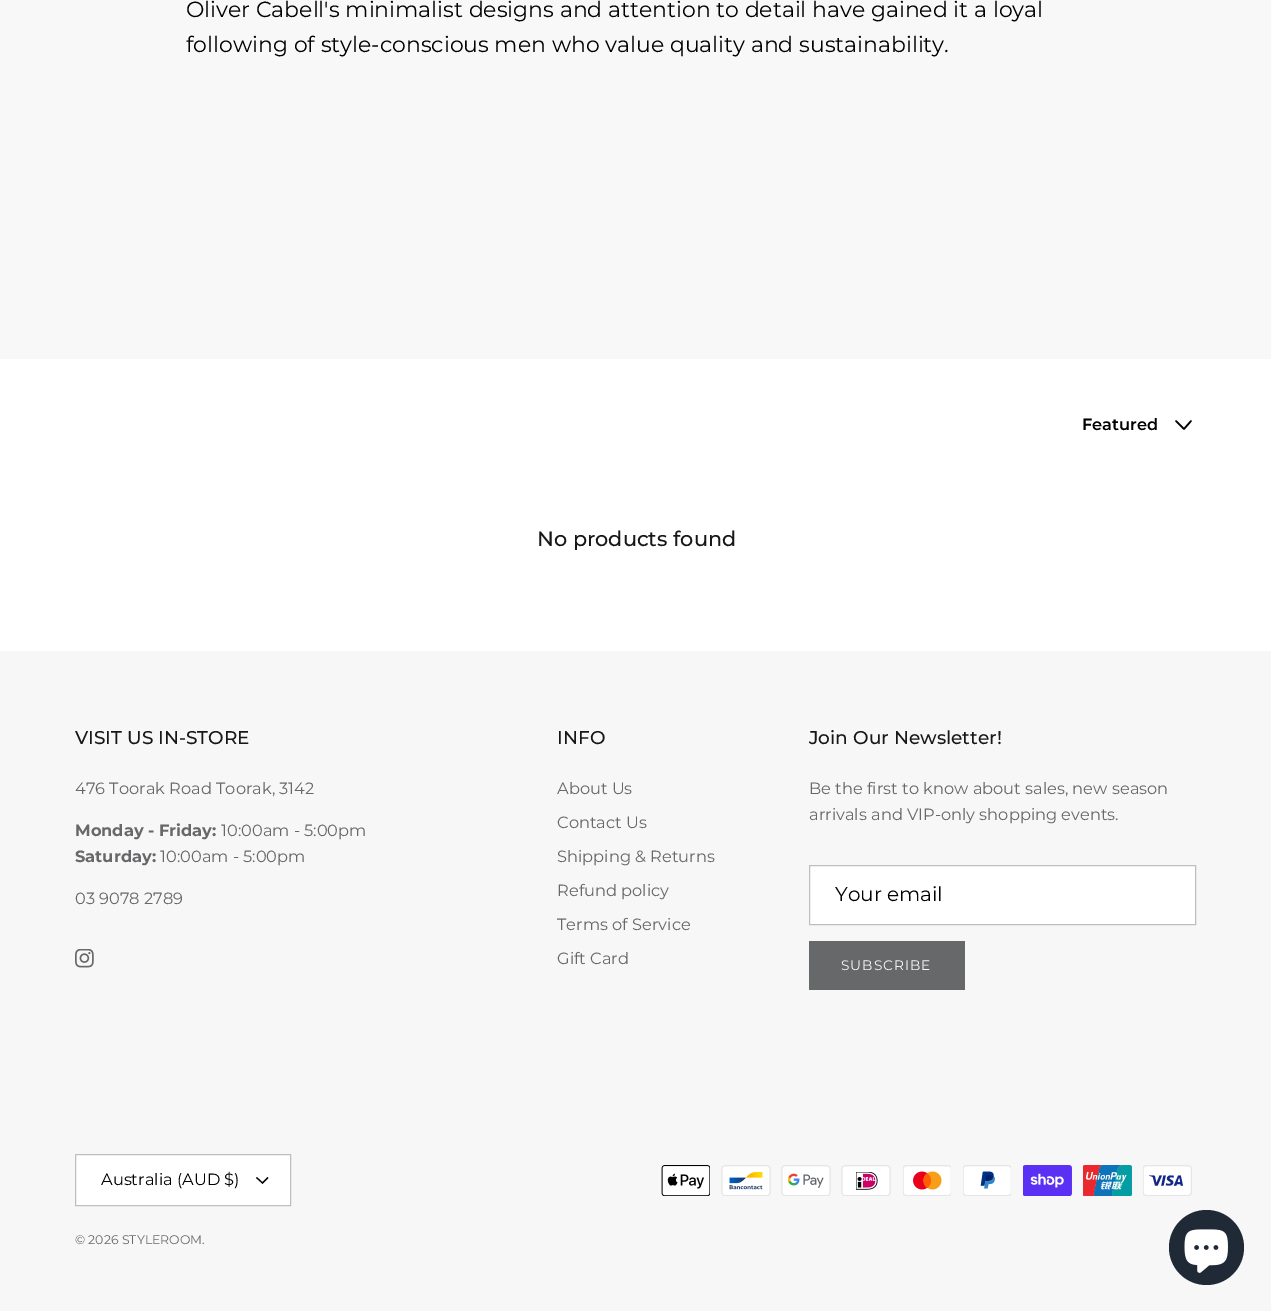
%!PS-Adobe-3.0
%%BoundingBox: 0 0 1271 1311
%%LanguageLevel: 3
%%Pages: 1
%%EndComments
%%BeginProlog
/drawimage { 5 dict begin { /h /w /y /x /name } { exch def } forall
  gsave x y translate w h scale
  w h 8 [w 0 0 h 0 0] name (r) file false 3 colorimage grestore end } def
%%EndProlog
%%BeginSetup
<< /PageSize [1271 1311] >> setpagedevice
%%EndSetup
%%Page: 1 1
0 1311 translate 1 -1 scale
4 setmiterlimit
1 setgray
0 0 1271 1311 rectfill
0.973 setgray
0 0 1271 359 rectfill
0 setgray
1.6 setlinewidth
1 setlinecap
1 setlinejoin
newpath 1176 421 moveto 1184 429 lineto 1191 421 lineto stroke
0.969 0.969 0.973 setrgbcolor
0 651 1271 660 rectfill
(images/1.raw) 75 949 19 19 drawimage
1 setgray
newpath 809.5 865.5 moveto 1195.5 865.5 lineto 1195.5 924.5 lineto 809.5 924.5 lineto closepath gsave fill grestore
0.749 setgray
1 setlinewidth
0 setlinecap
0 setlinejoin
stroke
0.404 0.408 0.412 setrgbcolor
809 941 156 49 rectfill
1 setgray
newpath 75.5 1154.5 moveto 290.5 1154.5 lineto 290.5 1205.5 lineto 75.5 1205.5 lineto closepath gsave fill grestore
0.749 setgray
stroke
0 setgray
1.2 setlinewidth
newpath 268 1177.5 moveto 262.5 1183 lineto 256.5 1177.5 lineto stroke
(images/2.raw) 661 1165 49 31 drawimage
(images/3.raw) 721 1165 50 31 drawimage
(images/4.raw) 781 1165 50 31 drawimage
(images/5.raw) 841 1165 50 31 drawimage
(images/6.raw) 903 1165 48 31 drawimage
(images/7.raw) 963 1165 48 31 drawimage
(images/8.raw) 1023 1165 49 31 drawimage
(images/9.raw) 1083 1165 49 31 drawimage
(images/10.raw) 1143 1165 49 31 drawimage
0.125 0.165 0.212 setrgbcolor
newpath 1206.5 1247.5 37.5 0 360 arc closepath fill
(images/11.raw) 1184 1229 44 44 drawimage
/Montserrat-Regular [21.95 0 0 -21.95 0 0] selectfont
0 setgray
186 17 moveto (Oliver Cabell's minimalist designs and attention to detail have gained it a loyal) show
186 52 moveto (following of style-conscious men who value quality and sustainability.) show
/Montserrat-SemiBold [16.25 0 0 -16.25 0 0] selectfont
1082 430 moveto (Featured) show
/Montserrat-Medium [20.75 0 0 -20.75 0 0] selectfont
0.09 setgray
537 546 moveto (No products found) show
/Montserrat-Medium [18.5 0 0 -18.5 0 0] selectfont
75 744 moveto (VISIT US IN-STORE) show
/Montserrat-Regular [16.25 0 0 -16.25 0 0] selectfont
0.404 0.408 0.412 setrgbcolor
75 794 moveto (476 Toorak Road Toorak, 3142) show
/Montserrat-Bold [16.25 0 0 -16.25 0 0] selectfont
75 836 moveto (Monday - Friday:) show
/Montserrat-Regular [16.25 0 0 -16.25 0 0] selectfont
221 836 moveto (10:00am - 5:00pm) show
/Montserrat-Bold [16.25 0 0 -16.25 0 0] selectfont
75 862 moveto (Saturday:) show
/Montserrat-Regular [16.25 0 0 -16.25 0 0] selectfont
160 862 moveto (10:00am - 5:00pm) show
75 904 moveto (03 9078 2789) show
/Montserrat-Medium [18.5 0 0 -18.5 0 0] selectfont
0.09 setgray
557 744 moveto (INFO) show
/Montserrat-Regular [16.25 0 0 -16.25 0 0] selectfont
0.404 0.408 0.412 setrgbcolor
557 794 moveto (About Us) show
557 828 moveto (Contact Us) show
557 862 moveto (Shipping & Returns) show
557 896 moveto (Refund policy) show
557 930 moveto (Terms of Service) show
557 964 moveto (Gift Card) show
/Montserrat-Medium [18.5 0 0 -18.5 0 0] selectfont
0.09 setgray
809 744 moveto (Join Our Newsletter!) show
/Montserrat-Regular [16.25 0 0 -16.25 0 0] selectfont
0.404 0.408 0.412 setrgbcolor
809 794 moveto (Be the first to know about sales, new season) show
809 820 moveto (arrivals and VIP-only shopping events.) show
/Montserrat-Regular [20 0 0 -20 0 0] selectfont
0 setgray
835 901 moveto (Your email) show
/Montserrat-Regular [13.75 0 0 -13.75 0 0] selectfont
0.969 0.969 0.973 setrgbcolor
841 970 moveto 1 0 (SUBSCRIBE) ashow
/Montserrat-Regular [16.25 0 0 -16.25 0 0] selectfont
0 setgray
101 1185 moveto (Australia \(AUD $\)) show
/Montserrat-Regular [12.5 0 0 -12.5 0 0] selectfont
0.404 0.408 0.412 setrgbcolor
75 1244 moveto (© 2026 STYLEROOM.) show
showpage
%%EOF
